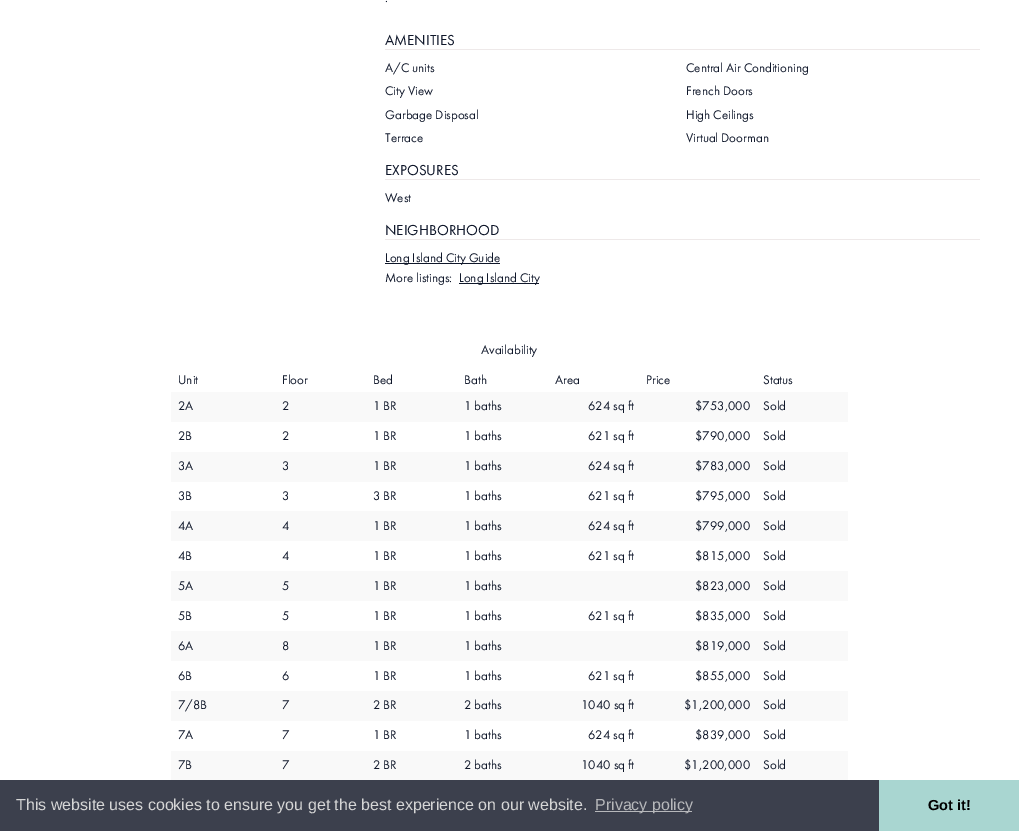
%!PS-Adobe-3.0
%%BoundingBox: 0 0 1019 831
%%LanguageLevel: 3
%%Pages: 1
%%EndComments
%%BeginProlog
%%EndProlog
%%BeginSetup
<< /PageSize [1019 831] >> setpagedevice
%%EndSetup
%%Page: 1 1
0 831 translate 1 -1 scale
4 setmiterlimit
1 setgray
0 0 1019 831 rectfill
0.933 0.914 0.914 setrgbcolor
385 49 595 1 rectfill
385 179 595 1 rectfill
385 239 595 1 rectfill
0.059 0.09 0.165 setrgbcolor
385 263 115 1 rectfill
459 283 80 1 rectfill
0.976 setgray
171 392 677 30 rectfill
171 452 677 30 rectfill
171 511 677 30 rectfill
171 571 677 30 rectfill
171 631 677 30 rectfill
171 691 677 30 rectfill
171 751 677 29 rectfill
0.235 0.251 0.302 setrgbcolor
0 780 879 51 rectfill
0.718 0.722 0.733 setrgbcolor
595 811 97 1 rectfill
0.663 0.839 0.82 setrgbcolor
879 780 140 51 rectfill
/FuturaPT-Regular [13 0 0 -13 0 0] selectfont
0.059 0.09 0.165 setrgbcolor
385 2 moveto (.) show
/FuturaPT-Regular [15 0 0 -15 0 0] selectfont
385 45 moveto (AMENITIES) show
/FuturaPT-Regular [13 0 0 -13 0 0] selectfont
385 72 moveto (A/C units) show
686 72 moveto (Central Air Conditioning) show
385 95 moveto (City View) show
686 95 moveto (French Doors) show
385 119 moveto (Garbage Disposal) show
686 119 moveto (High Ceilings) show
385 142 moveto (Terrace) show
686 142 moveto (Virtual Doorman) show
/FuturaPT-Regular [15 0 0 -15 0 0] selectfont
385 175 moveto (EXPOSURES) show
/FuturaPT-Regular [13 0 0 -13 0 0] selectfont
385 202 moveto (West) show
/FuturaPT-Regular [15 0 0 -15 0 0] selectfont
385 235 moveto (NEIGHBORHOOD) show
/FuturaPT-Regular [13 0 0 -13 0 0] selectfont
385 262 moveto (Long Island City Guide) show
385 282 moveto (More listings:) show
459 282 moveto (Long Island City) show
481 354 moveto (Availability) show
178 384 moveto (Unit) show
282 384 moveto (Floor) show
373 384 moveto (Bed) show
464 384 moveto (Bath) show
555 384 moveto (Area) show
646 384 moveto (Price) show
763 384 moveto (Status) show
178 410 moveto (2A) show
282 410 moveto (2) show
373 410 moveto (1 BR) show
464 410 moveto (1 baths) show
588 410 moveto (624 sq ft) show
695 410 moveto ($753,000) show
763 410 moveto (Sold) show
178 440 moveto (2B) show
282 440 moveto (2) show
373 440 moveto (1 BR) show
464 440 moveto (1 baths) show
588 440 moveto (621 sq ft) show
695 440 moveto ($790,000) show
763 440 moveto (Sold) show
178 470 moveto (3A) show
282 470 moveto (3) show
373 470 moveto (1 BR) show
464 470 moveto (1 baths) show
588 470 moveto (624 sq ft) show
695 470 moveto ($783,000) show
763 470 moveto (Sold) show
178 500 moveto (3B) show
282 500 moveto (3) show
373 500 moveto (3 BR) show
464 500 moveto (1 baths) show
588 500 moveto (621 sq ft) show
695 500 moveto ($795,000) show
763 500 moveto (Sold) show
178 530 moveto (4A) show
282 530 moveto (4) show
373 530 moveto (1 BR) show
464 530 moveto (1 baths) show
588 530 moveto (624 sq ft) show
695 530 moveto ($799,000) show
763 530 moveto (Sold) show
178 560 moveto (4B) show
282 560 moveto (4) show
373 560 moveto (1 BR) show
464 560 moveto (1 baths) show
588 560 moveto (621 sq ft) show
695 560 moveto ($815,000) show
763 560 moveto (Sold) show
178 590 moveto (5A) show
282 590 moveto (5) show
373 590 moveto (1 BR) show
464 590 moveto (1 baths) show
695 590 moveto ($823,000) show
763 590 moveto (Sold) show
178 620 moveto (5B) show
282 620 moveto (5) show
373 620 moveto (1 BR) show
464 620 moveto (1 baths) show
588 620 moveto (621 sq ft) show
695 620 moveto ($835,000) show
763 620 moveto (Sold) show
178 650 moveto (6A) show
282 650 moveto (8) show
373 650 moveto (1 BR) show
464 650 moveto (1 baths) show
695 650 moveto ($819,000) show
763 650 moveto (Sold) show
178 680 moveto (6B) show
282 680 moveto (6) show
373 680 moveto (1 BR) show
464 680 moveto (1 baths) show
588 680 moveto (621 sq ft) show
695 680 moveto ($855,000) show
763 680 moveto (Sold) show
178 709 moveto (7/8B) show
282 709 moveto (7) show
373 709 moveto (2 BR) show
464 709 moveto (2 baths) show
581 709 moveto (1040 sq ft) show
684 709 moveto ($1,200,000) show
763 709 moveto (Sold) show
178 739 moveto (7A) show
282 739 moveto (7) show
373 739 moveto (1 BR) show
464 739 moveto (1 baths) show
588 739 moveto (624 sq ft) show
695 739 moveto ($839,000) show
763 739 moveto (Sold) show
178 769 moveto (7B) show
282 769 moveto (7) show
373 769 moveto (2 BR) show
464 769 moveto (2 baths) show
581 769 moveto (1040 sq ft) show
684 769 moveto ($1,200,000) show
763 769 moveto (Sold) show
/LiberationSans-Regular [16 0 0 -16 0 0] selectfont
0.839 setgray
16 810 moveto (This website uses cookies to ensure you get the best experience on our website.) show
0.718 0.722 0.733 setrgbcolor
595 810 moveto (Privacy policy) show
/LiberationSans-Bold [14.5 0 0 -14.5 0 0] selectfont
0 setgray
928 810 moveto (Got it!) show
showpage
%%EOF
